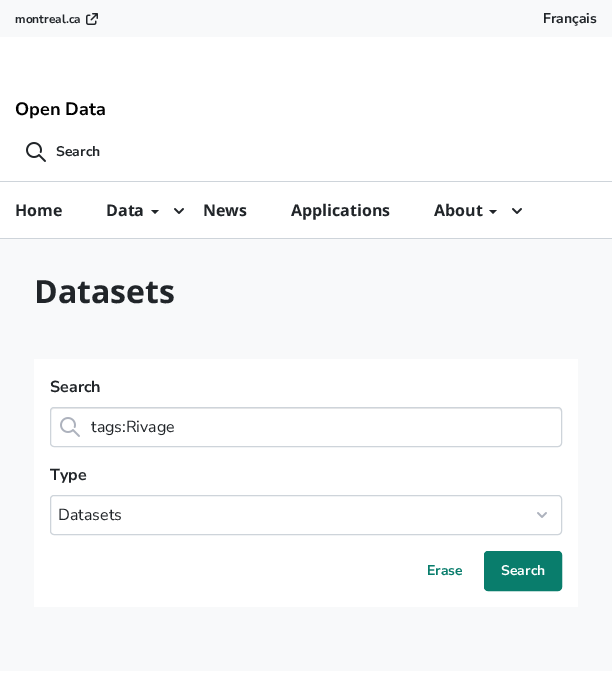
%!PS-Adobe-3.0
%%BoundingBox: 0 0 612 689
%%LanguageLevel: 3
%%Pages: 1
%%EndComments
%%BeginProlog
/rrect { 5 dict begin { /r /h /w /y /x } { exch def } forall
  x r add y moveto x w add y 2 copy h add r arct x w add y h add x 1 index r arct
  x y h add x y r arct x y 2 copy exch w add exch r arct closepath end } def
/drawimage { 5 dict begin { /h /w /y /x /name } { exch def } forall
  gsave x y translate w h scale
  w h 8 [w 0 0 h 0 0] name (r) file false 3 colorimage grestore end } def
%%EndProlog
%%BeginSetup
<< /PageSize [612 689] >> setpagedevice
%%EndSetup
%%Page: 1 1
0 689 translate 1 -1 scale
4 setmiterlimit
1 setgray
0 0 612 689 rectfill
0.973 0.976 0.98 setrgbcolor
0 0 612 37 rectfill
(images/1.raw) 86 13 12 12 drawimage
0.808 0.831 0.855 setrgbcolor
0 238 612 1 rectfill
0 181 612 1 rectfill
(images/2.raw) 26 142 20 20 drawimage
0.129 0.145 0.161 setrgbcolor
newpath 151 210 moveto 159 210 lineto 155 214 lineto closepath fill
(images/3.raw) 174 208 10 6 drawimage
newpath 489 210 moveto 497 210 lineto 493 214 lineto closepath fill
(images/3.raw) 512 208 10 6 drawimage
0.973 0.976 0.98 setrgbcolor
0 239 612 432 rectfill
1 setgray
34 359 544 248 rectfill
0.925 setgray
newpath 54 409 moveto 558 409 lineto 560 409 561 410 561 412 curveto 561 410 lineto 559 408 lineto 54 408 lineto 52 408 51 410 51 412 curveto 51 410 52 409 54 409 curveto closepath fill
0.808 0.831 0.855 setrgbcolor
50.5 407.5 511 39 3.5 rrect stroke
(images/4.raw) 60 417 20 20 drawimage
(images/5.raw) 537 512 10 6 drawimage
50.5 495.5 511 39 3.5 rrect stroke
0.035 0.49 0.424 setrgbcolor
484.5 551.5 77 39 3.5 rrect gsave fill grestore
stroke
/NunitoSans-Bold [12 0 0 -12 0 0] selectfont
0.129 0.145 0.161 setrgbcolor
15 23 moveto (montreal.ca) show
/NunitoSans-Bold [14 0 0 -14 0 0] selectfont
543 23 moveto (Français) show
/NunitoSans-Bold [18 0 0 -18 0 0] selectfont
0 setgray
15 115 moveto (Open Data) show
/NunitoSans-Bold [14 0 0 -14 0 0] selectfont
0.129 0.145 0.161 setrgbcolor
56 156 moveto (Search) show
/OpenSans-Bold [16 0 0 -16 0 0] selectfont
15 216 moveto (Home) show
106 216 moveto (Data) show
203 216 moveto (News) show
291 216 moveto (Applications) show
434 216 moveto (About) show
/OpenSans-Bold [32 0 0 -32 0 0] selectfont
34 303 moveto (Datasets) show
/NunitoSans-Bold [16 0 0 -16 0 0] selectfont
50 392 moveto (Search) show
/NunitoSans-Regular [16 0 0 -16 0 0] selectfont
91 432 moveto (tags:Rivage) show
/NunitoSans-Bold [16 0 0 -16 0 0] selectfont
50 480 moveto (Type) show
/NunitoSans-Regular [16 0 0 -16 0 0] selectfont
58 520 moveto (Datasets) show
/NunitoSans-Bold [14 0 0 -14 0 0] selectfont
0.035 0.49 0.424 setrgbcolor
427 575 moveto (Erase) show
1 setgray
501 575 moveto (Search) show
showpage
%%EOF
